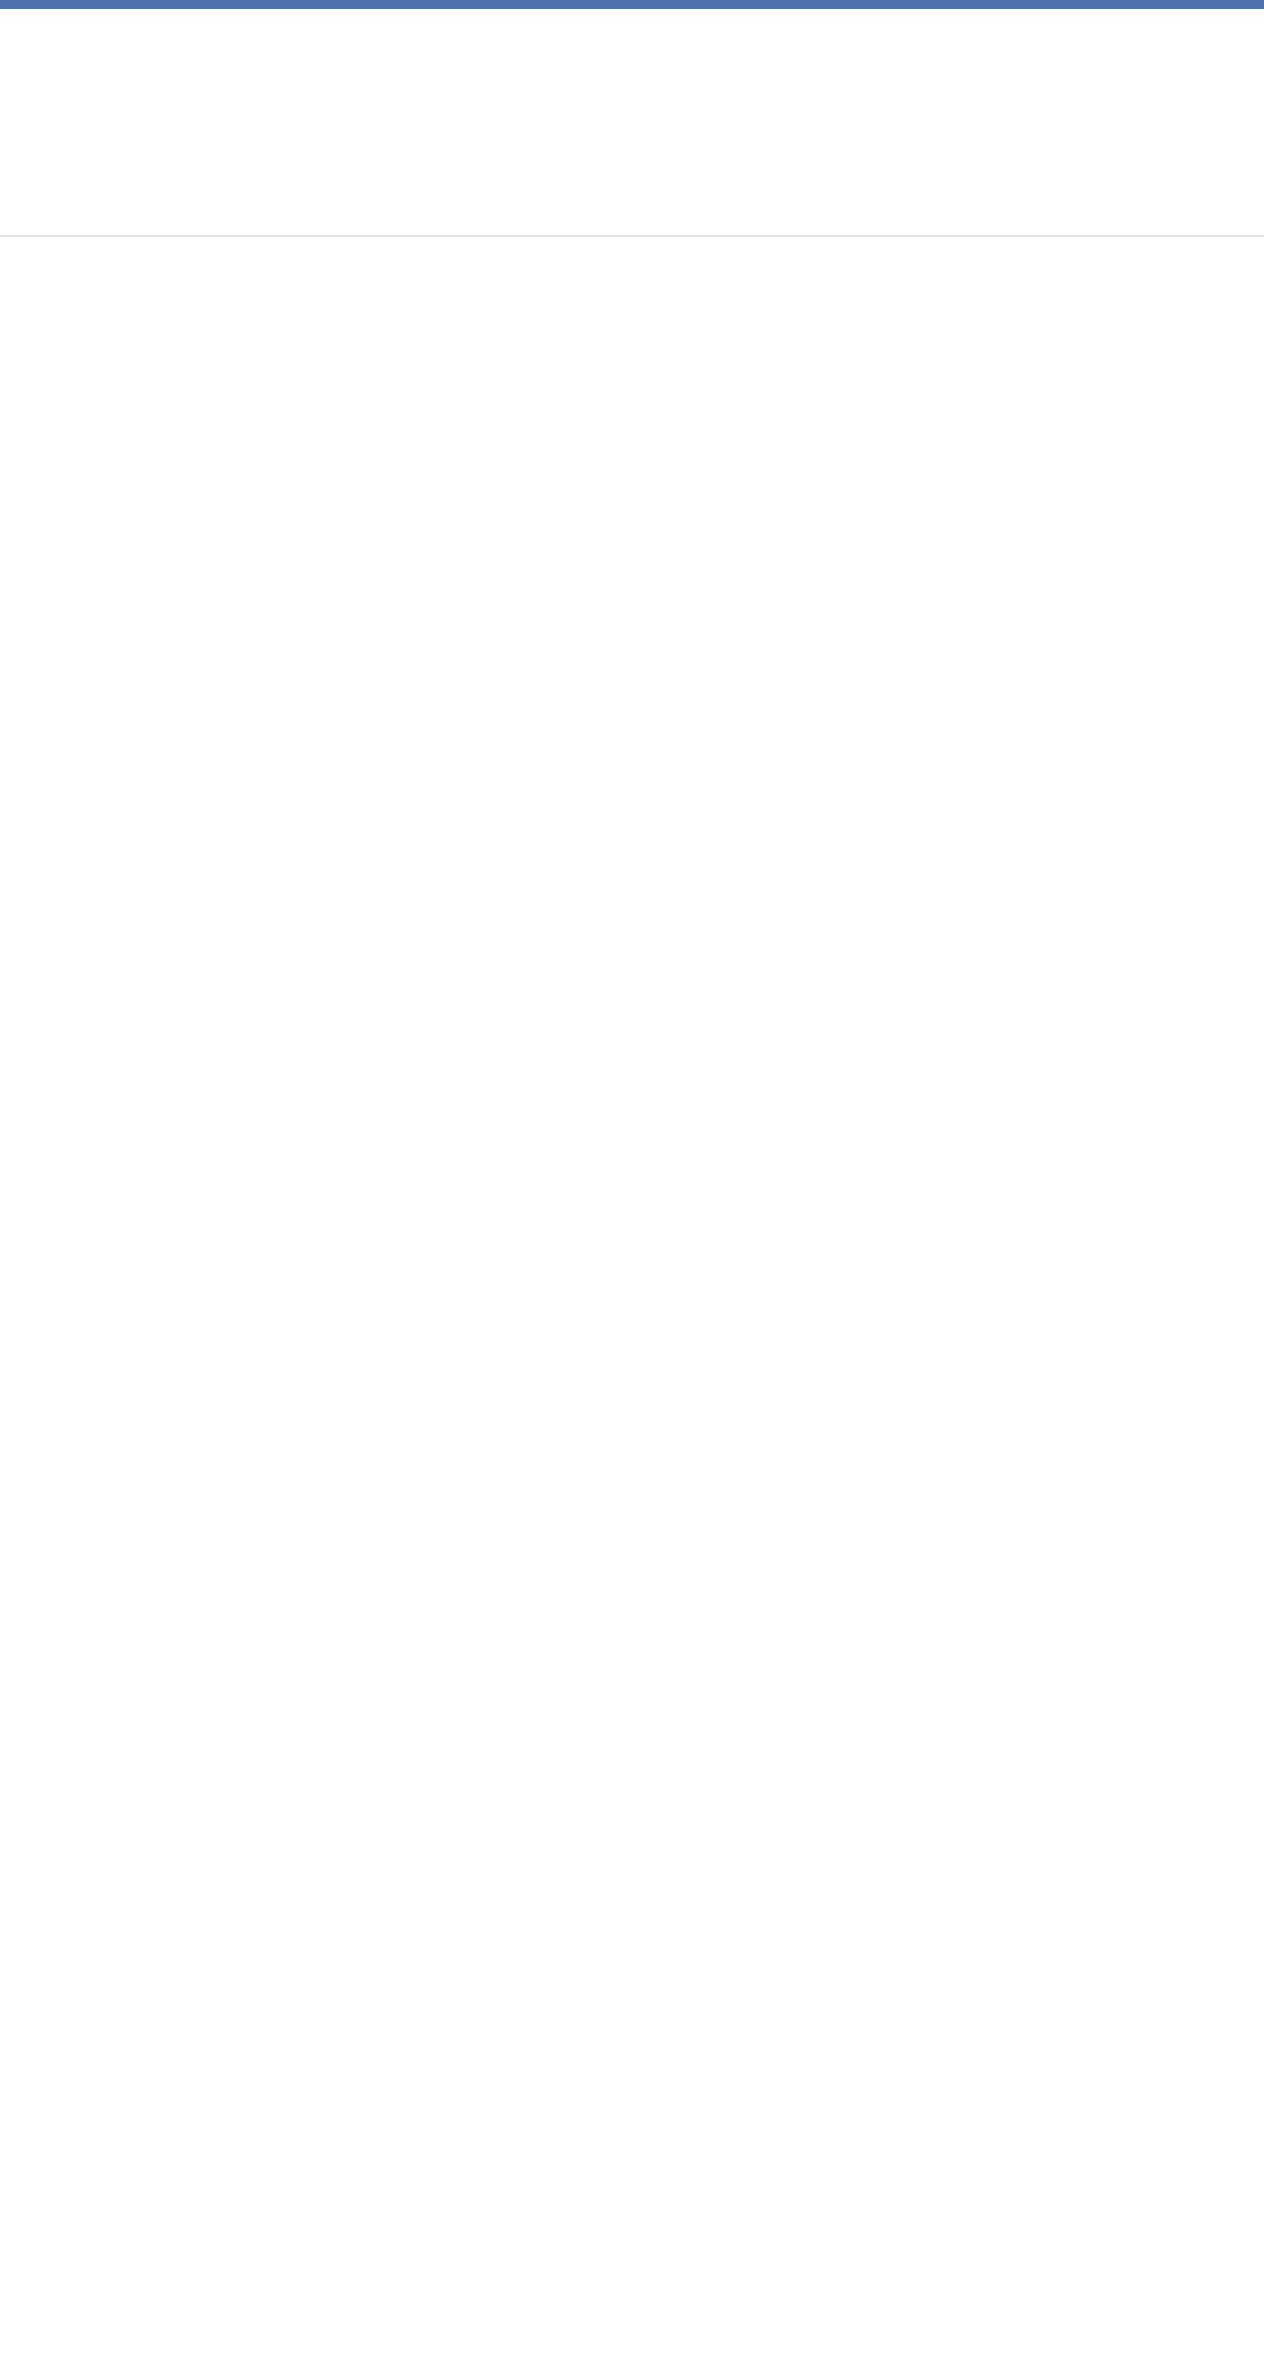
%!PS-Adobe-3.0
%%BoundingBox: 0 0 1264 2355
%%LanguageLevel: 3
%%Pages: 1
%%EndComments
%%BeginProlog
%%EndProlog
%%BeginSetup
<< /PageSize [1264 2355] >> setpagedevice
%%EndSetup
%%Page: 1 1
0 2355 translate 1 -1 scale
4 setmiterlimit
1 setgray
0 0 1264 2355 rectfill
0.31 0.451 0.686 setrgbcolor
0 0 1264 9 rectfill
0.898 0.898 0.902 setrgbcolor
0 235 1264 2 rectfill
showpage
%%EOF
